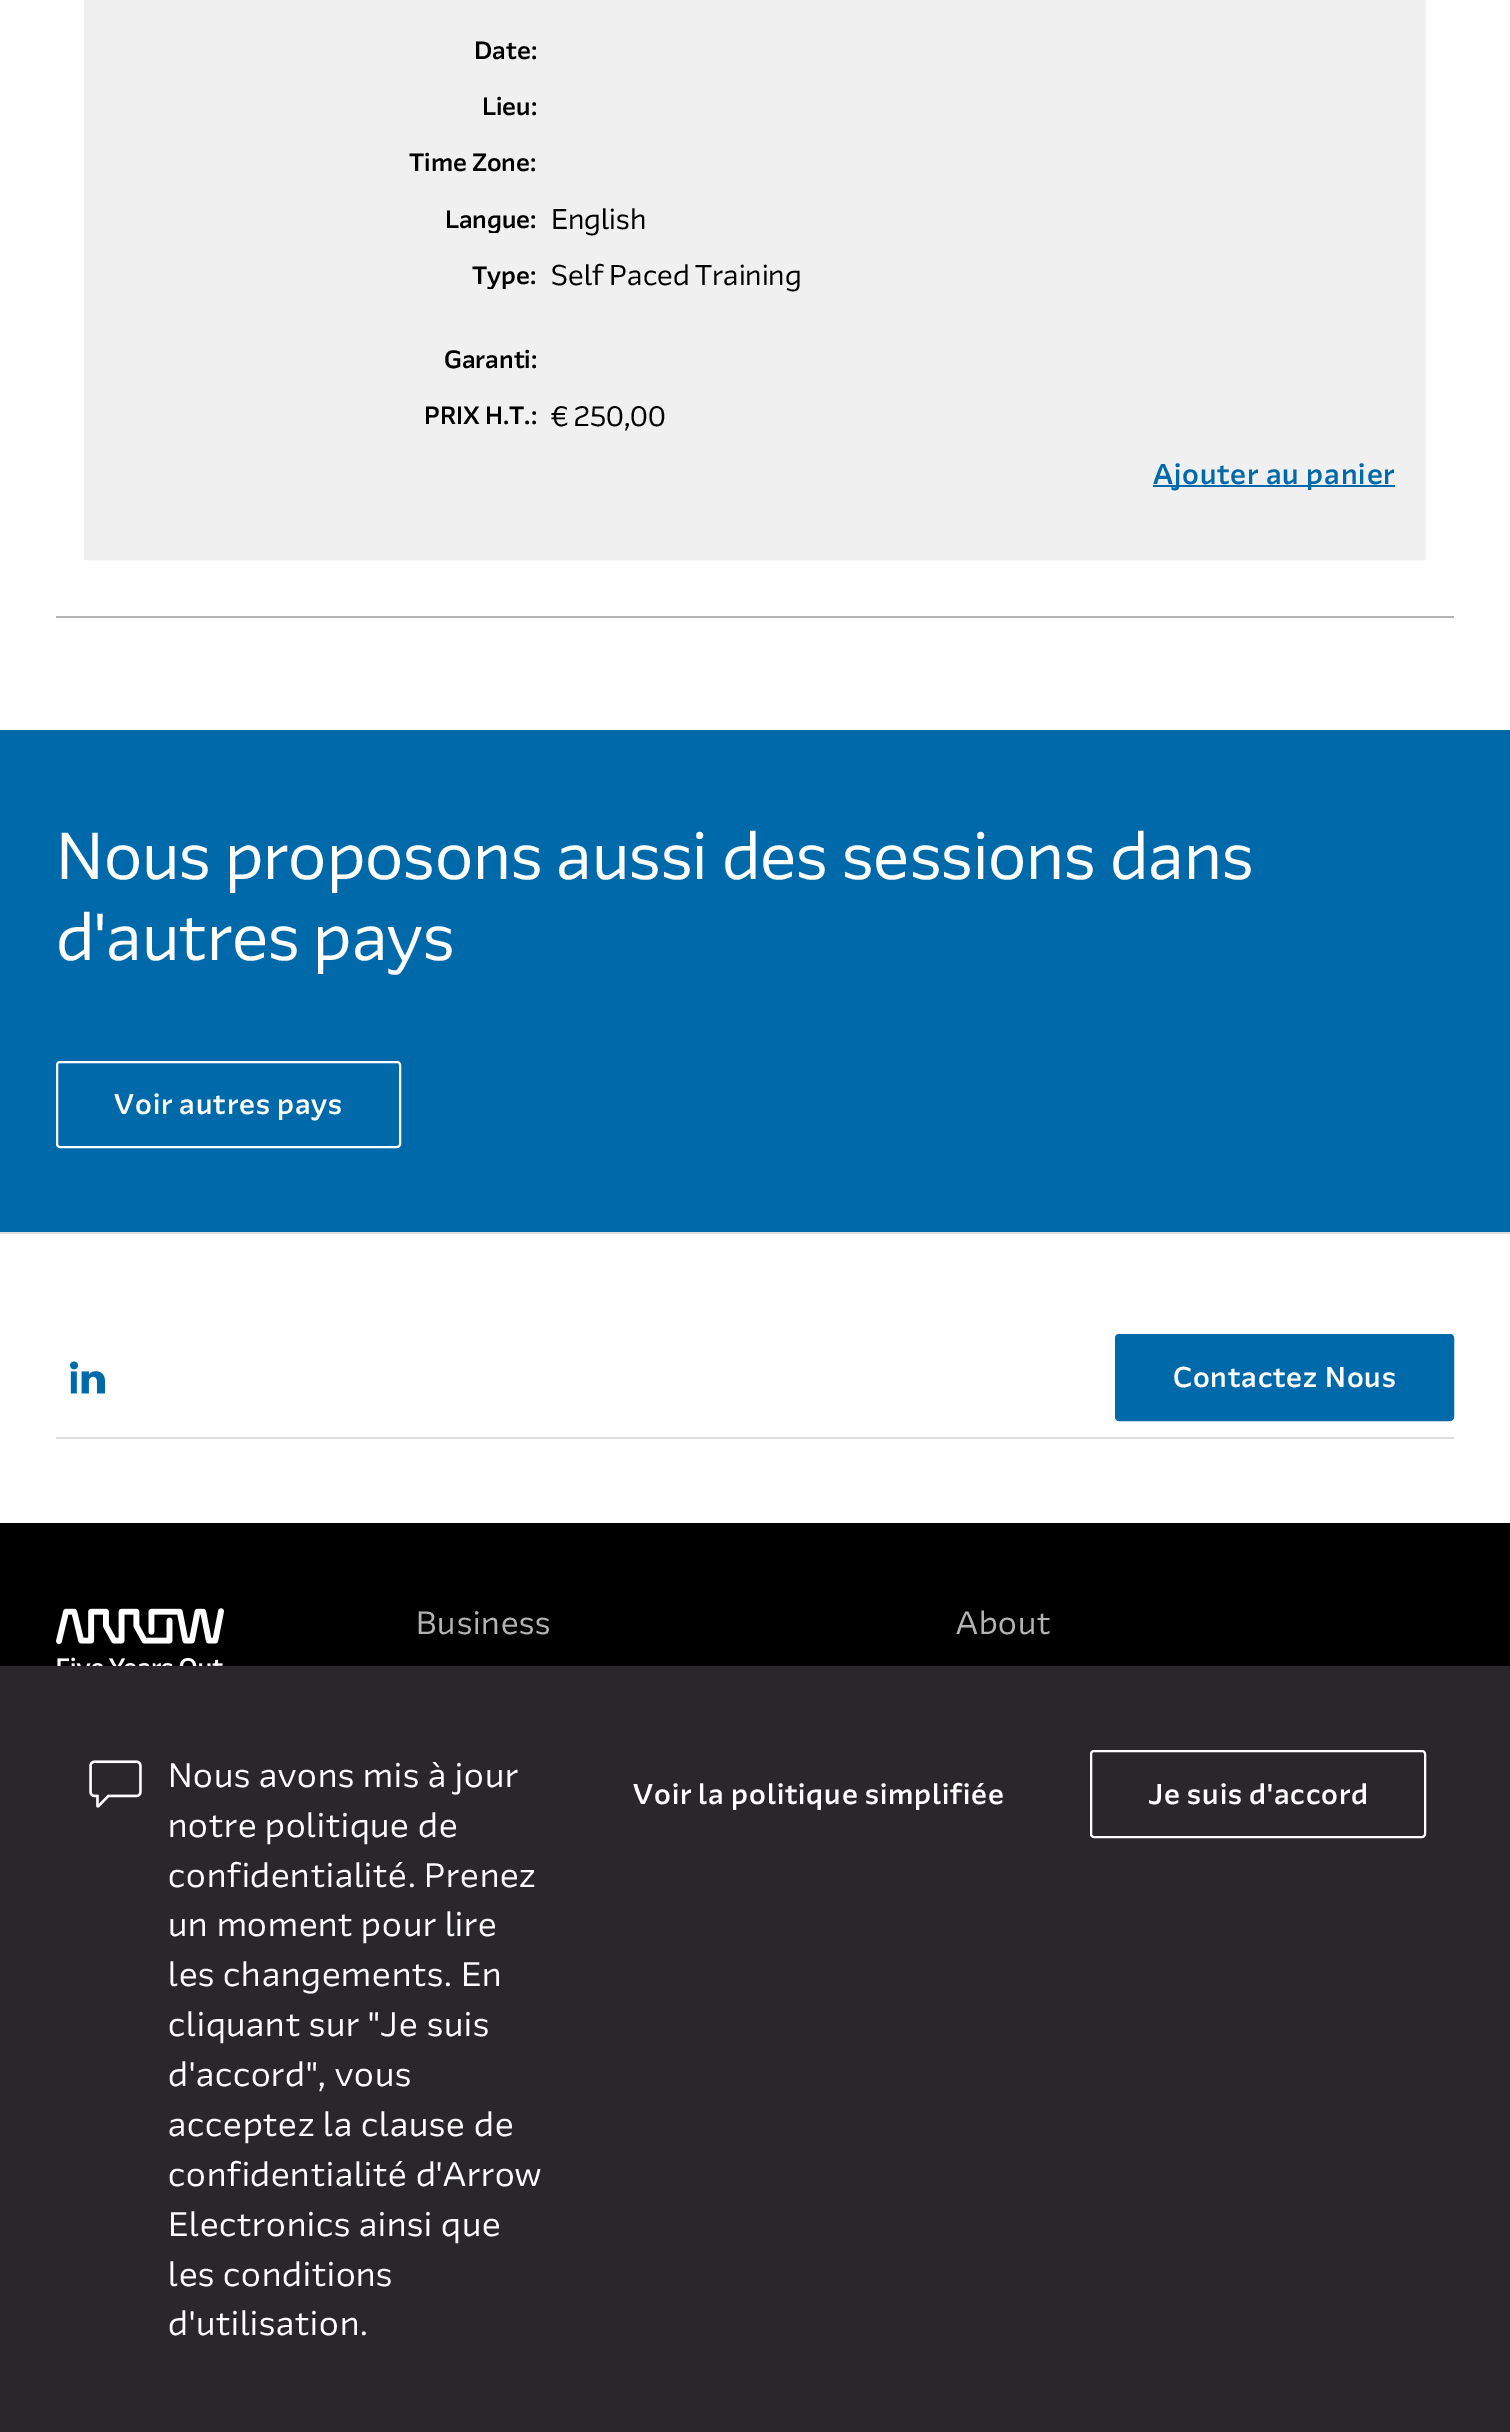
%!PS-Adobe-3.0
%%BoundingBox: 0 0 1510 2432
%%LanguageLevel: 3
%%Pages: 1
%%EndComments
%%BeginProlog
/rrect { 5 dict begin { /r /h /w /y /x } { exch def } forall
  x r add y moveto x w add y 2 copy h add r arct x w add y h add x 1 index r arct
  x y h add x y r arct x y 2 copy exch w add exch r arct closepath end } def
/drawimage { 5 dict begin { /h /w /y /x /name } { exch def } forall
  gsave x y translate w h scale
  w h 8 [w 0 0 h 0 0] name (r) file false 3 colorimage grestore end } def
%%EndProlog
%%BeginSetup
<< /PageSize [1510 2432] >> setpagedevice
%%EndSetup
%%Page: 1 1
0 2432 translate 1 -1 scale
4 setmiterlimit
1 setgray
0 0 1510 2432 rectfill
0.702 setgray
56 616 1398 2 rectfill
0.941 setgray
2 setlinewidth
85 -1 1340 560 rectstroke
86 0 1338 558 rectfill
0 0.412 0.667 setrgbcolor
1153 485 242 2 rectfill
0 730 1510 502 rectfill
1 setgray
57 1062 343 85 3 rrect stroke
0.871 setgray
0 1232 1510 2 rectfill
56 1437 1398 2 rectfill
(images/1.raw) 70 1361 35 33 drawimage
0 0.412 0.667 setrgbcolor
1116 1335 337 85 3 rrect gsave fill grestore
stroke
0 setgray
0 1523 1510 143 rectfill
(images/2.raw) 56 1608 168 58 drawimage
0.161 0.153 0.165 setrgbcolor
0 1666 1510 766 rectfill
(images/3.raw) 89 1760 53 48 drawimage
1 setgray
1091 1751 334 86 3 rrect stroke
/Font-Medium [24.5 0 0 -24.5 0 0] selectfont
0 setgray
474 59 moveto (Date:) show
482 115 moveto (Lieu:) show
409 171 moveto (Time Zone:) show
gsave
114 205 423 28 rectclip
445 228 moveto (Langue:) show
grestore
/Font-Regular [28 0 0 -28 0 0] selectfont
551 229 moveto (English) show
gsave
114 261 423 28 rectclip
/Font-Medium [24.5 0 0 -24.5 0 0] selectfont
472 284 moveto (Type:) show
grestore
551 285 moveto (Self Paced Training) show
/Font-Medium [24.5 0 0 -24.5 0 0] selectfont
444 368 moveto (Garanti:) show
424 424 moveto (PRIX H.T.:) show
/Font-Regular [28 0 0 -28 0 0] selectfont
551 426 moveto (€ 250,00) show
/Font-Medium [28 0 0 -28 0 0] selectfont
0 0.412 0.667 setrgbcolor
1153 484 moveto 0.9 0 (Ajouter au panier) ashow
/Font-Regular [64.75 0 0 -64.75 0 0] selectfont
1 setgray
56 879 moveto (Nous proposons aussi des sessions dans) show
56 960 moveto (d'autres pays) show
/Font-Medium [28 0 0 -28 0 0] selectfont
114 1114 moveto 0.9 0 (Voir autres pays) ashow
1173 1387 moveto 0.9 0 (Contactez Nous) ashow
/Font-Regular [31.5 0 0 -31.5 0 0] selectfont
0.702 setgray
416 1634 moveto 0.9 0 (Business) ashow
956 1634 moveto 0.9 0 (About) ashow
/Font-Regular [33.25 0 0 -33.25 0 0] selectfont
1 setgray
168 1787 moveto 0.9 0 (Nous avons mis à jour) ashow
168 1837 moveto 0.9 0 (notre politique de) ashow
168 1887 moveto 0.9 0 (confidentialité. Prenez) ashow
168 1936 moveto 0.9 0 (un moment pour lire) ashow
168 1986 moveto 0.9 0 (les changements. En) ashow
168 2036 moveto 0.9 0 (cliquant sur "Je suis) ashow
168 2086 moveto 0.9 0 (d'accord", vous) ashow
168 2136 moveto 0.9 0 (acceptez la clause de) ashow
168 2186 moveto 0.9 0 (confidentialité d'Arrow) ashow
168 2236 moveto 0.9 0 (Electronics ainsi que) ashow
168 2286 moveto 0.9 0 (les conditions) ashow
168 2335 moveto 0.9 0 (d'utilisation.) ashow
/Font-Medium [28 0 0 -28 0 0] selectfont
633 1804 moveto 0.9 0 (Voir la politique simplifiée) ashow
1148 1804 moveto 0.9 0 (Je suis d'accord) ashow
showpage
%%EOF
